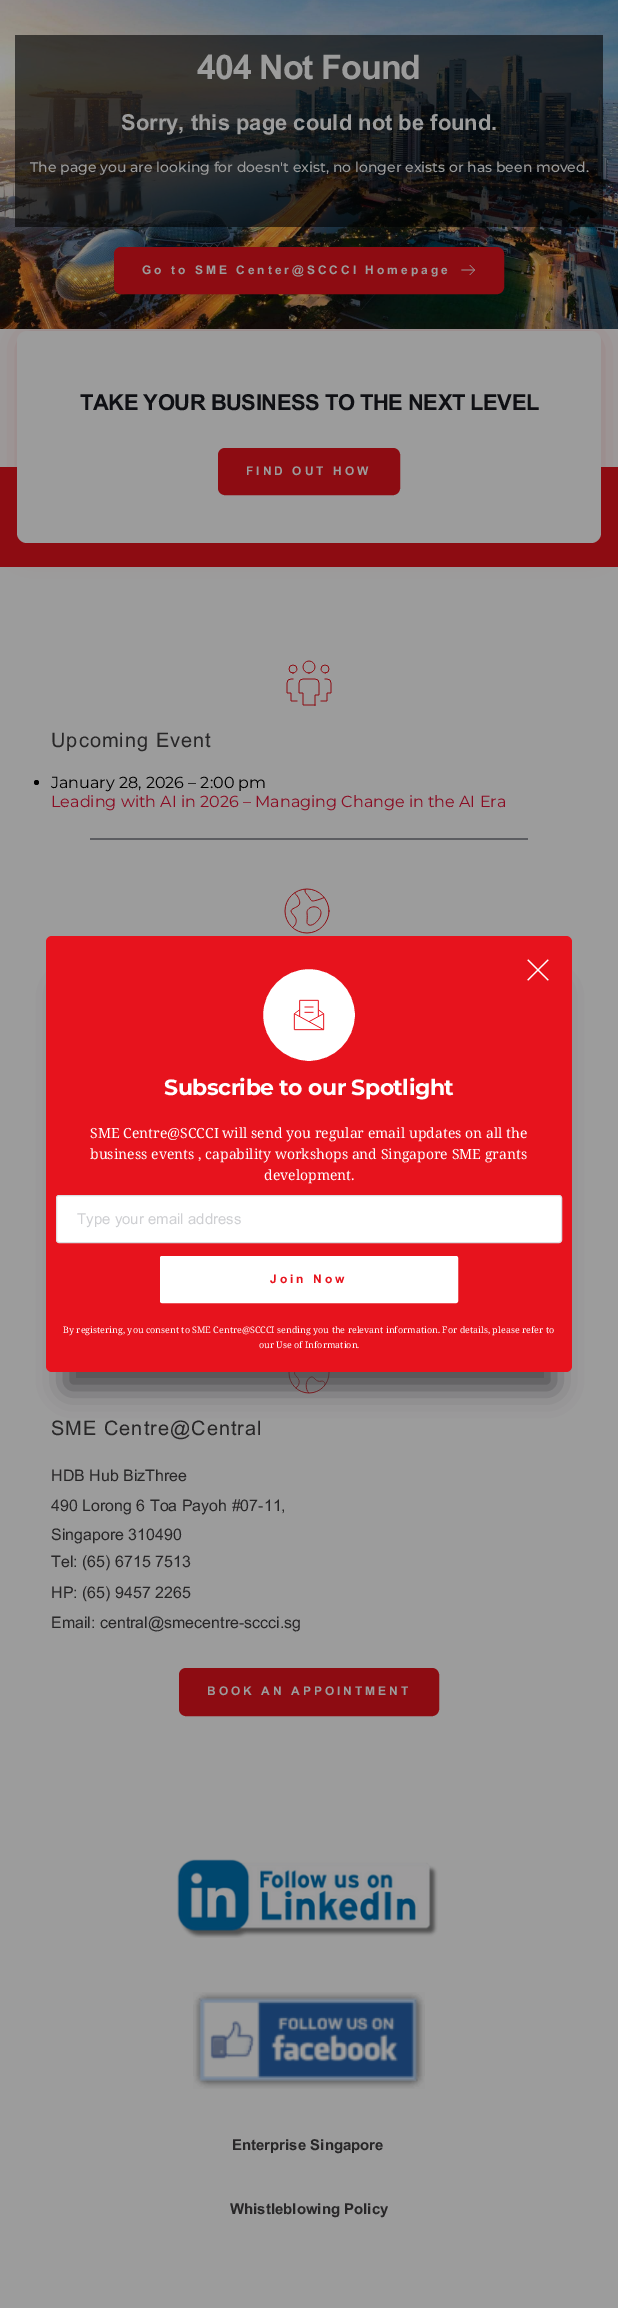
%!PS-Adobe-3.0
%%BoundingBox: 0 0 618 2308
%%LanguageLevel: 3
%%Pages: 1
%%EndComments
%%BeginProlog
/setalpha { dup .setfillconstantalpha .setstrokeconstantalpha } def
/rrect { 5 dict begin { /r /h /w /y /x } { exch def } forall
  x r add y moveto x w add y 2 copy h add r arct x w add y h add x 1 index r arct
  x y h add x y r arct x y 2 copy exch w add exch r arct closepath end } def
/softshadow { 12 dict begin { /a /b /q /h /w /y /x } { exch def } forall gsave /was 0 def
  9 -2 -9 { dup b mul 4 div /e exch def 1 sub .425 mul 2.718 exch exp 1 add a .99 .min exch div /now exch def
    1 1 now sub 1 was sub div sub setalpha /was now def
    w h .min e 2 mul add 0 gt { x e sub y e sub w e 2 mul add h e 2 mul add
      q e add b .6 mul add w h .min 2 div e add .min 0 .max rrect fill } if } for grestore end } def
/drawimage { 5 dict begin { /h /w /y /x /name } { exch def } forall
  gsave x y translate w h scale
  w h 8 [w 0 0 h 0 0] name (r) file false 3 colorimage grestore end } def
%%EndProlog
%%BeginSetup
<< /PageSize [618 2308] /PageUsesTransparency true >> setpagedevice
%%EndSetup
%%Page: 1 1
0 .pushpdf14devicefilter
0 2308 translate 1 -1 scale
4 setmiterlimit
0.612 setgray
0 0 618 2308 rectfill
(images/1.raw) 0 0 618 329 drawimage
0.61 setalpha
0 setgray
15 35 588 192 rectfill
1 setalpha
0.553 0.047 0.071 setrgbcolor
115 248 388 45 6 rrect gsave fill grestore
2 setlinewidth
stroke
(images/2.raw) 461 265 14 10 drawimage
0 467 618 100 rectfill
18 333 584 212 10 15 0.2 softshadow
0.612 setgray
17 331 584 212 10 rrect fill
0.553 0.047 0.071 setrgbcolor
219 449 180 45 6 rrect gsave fill grestore
stroke
(images/3.raw) 286 660 46 46 drawimage
0 setgray
newpath 36.5 782.5 2.5 0 360 arc closepath fill
0.361 0.365 0.38 setrgbcolor
90 838 438 2 rectfill
(images/4.raw) 284 888 46 46 drawimage
(images/5.raw) 288 1372 42 22 drawimage
0.553 0.047 0.071 setrgbcolor
180 1669 258 46 6 rrect gsave fill grestore
stroke
(images/6.raw) 177 1859 261 79 drawimage
(images/7.raw) 193 1992 232 97 drawimage
0.255 0.251 0.259 setrgbcolor
66 990 488 398 0 13.5 0.86 softshadow
0.906 0.075 0.114 setrgbcolor
46 936 526 436 6 rrect fill
(images/8.raw) 527 959 22 22 drawimage
1 setgray
newpath 309 1015 47.5 0 360 arc closepath gsave fill grestore
0.906 0.075 0.114 setrgbcolor
3 setlinewidth
stroke
(images/9.raw) 293 999 32 32 drawimage
1 setgray
56.5 1195.5 505 47 2.5 rrect gsave fill grestore
0.863 0.871 0.882 setrgbcolor
1 setlinewidth
stroke
1 setgray
161 1257 296 45 1 rrect gsave fill grestore
2 setlinewidth
stroke
/Arial-Bold [34 0 0 -34 0 0] selectfont
0.612 setgray
197 79 moveto -1 0 (404 Not Found) ashow
/Arial-Bold [22 0 0 -22 0 0] selectfont
121 130 moveto (Sorry, this page could not be found.) show
/Montserrat-Thin [14 0 0 -14 0 0] selectfont
30 172 moveto (The page you are looking for doesn't exist, no longer exists or has been moved.) show
/Arial-Bold [12 0 0 -12 0 0] selectfont
142 274 moveto 3 0 (Go to SME Center@SCCCI Homepage) ashow
/Arial-Bold [22 0 0 -22 0 0] selectfont
0.059 0.063 0.078 setrgbcolor
80 410 moveto -0.5 0 (TAKE YOUR BUSINESS TO THE NEXT LEVEL) ashow
/Arial-Bold [12 0 0 -12 0 0] selectfont
0.612 setgray
246 475 moveto 3 0 (FIND OUT HOW) ashow
/Arial-Regular [20 0 0 -20 0 0] selectfont
0.157 0.153 0.157 setrgbcolor
51 747 moveto 1 0 (Upcoming Event) ashow
/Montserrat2-Thin [16 0 0 -16 0 0] selectfont
0 setgray
51 788 moveto (January 28, 2026 – 2:00 pm) show
0.541 0.047 0.137 setrgbcolor
51 807 moveto (Leading with AI in 2026 – Managing Change in the AI Era) show
/Arial-Regular [20 0 0 -20 0 0] selectfont
0.157 0.153 0.157 setrgbcolor
51 1435 moveto 1 0 (SME Centre@Central) ashow
/Arial-Regular [16 0 0 -16 0 0] selectfont
51 1481 moveto (HDB Hub BizThree) show
51 1511 moveto (490 Lorong 6 Toa Payoh #07-11,) show
51 1540 moveto (Singapore 310490) show
51 1567 moveto (Tel: \(65\) 6715 7513) show
51 1598 moveto (HP: \(65\) 9457 2265) show
51 1628 moveto (Email: central@smecentre-sccci.sg) show
/Arial-Bold [12 0 0 -12 0 0] selectfont
0.612 setgray
207 1695 moveto 3 0 (BOOK AN APPOINTMENT) ashow
/Arial-Bold [15 0 0 -15 0 0] selectfont
0.157 0.153 0.157 setrgbcolor
232 2150 moveto (Enterprise Singapore) show
230 2214 moveto (Whistleblowing Policy) show
/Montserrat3-Thin [22 0 0 -22 0 0] selectfont
1 setgray
164 1095 moveto -0.5 0 (Subscribe to our Spotlight) ashow
/NotoSerif-Regular [14 0 0 -14 0 0] selectfont
90 1138 moveto (SME Centre@SCCCI will send you regular email updates on all the) show
90 1159 moveto (business events , capability workshops and Singapore SME grants) show
264 1180 moveto (development.) show
/Arial-Regular [15 0 0 -15 0 0] selectfont
0.808 0.812 0.824 setrgbcolor
77 1224 moveto (Type your email address) show
/Arial-Bold [12 0 0 -12 0 0] selectfont
0.906 0.075 0.114 setrgbcolor
270 1283 moveto 3 0 (Join Now) ashow
/NotoSerif-Regular [9 0 0 -9 0 0] selectfont
1 setgray
63 1333 moveto (By registering, you consent to SME Centre@SCCCI sending you the relevant information. For details, please refer to) show
259 1348 moveto (our Use of Information.) show
.poppdf14devicefilter showpage
%%EOF
